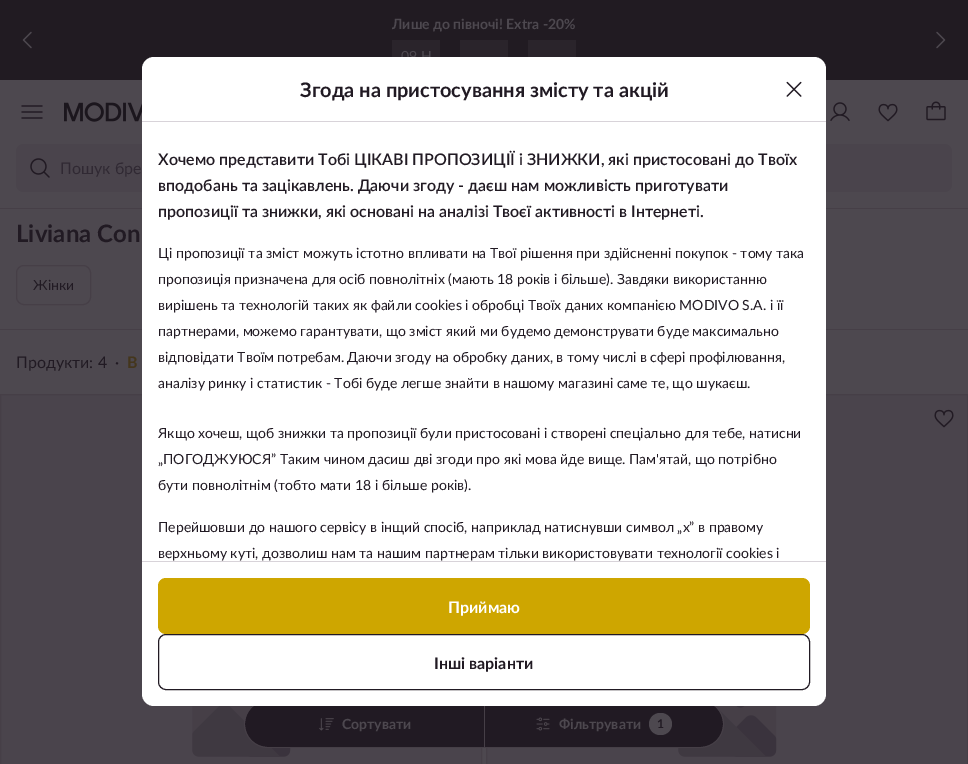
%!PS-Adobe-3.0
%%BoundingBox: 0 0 968 764
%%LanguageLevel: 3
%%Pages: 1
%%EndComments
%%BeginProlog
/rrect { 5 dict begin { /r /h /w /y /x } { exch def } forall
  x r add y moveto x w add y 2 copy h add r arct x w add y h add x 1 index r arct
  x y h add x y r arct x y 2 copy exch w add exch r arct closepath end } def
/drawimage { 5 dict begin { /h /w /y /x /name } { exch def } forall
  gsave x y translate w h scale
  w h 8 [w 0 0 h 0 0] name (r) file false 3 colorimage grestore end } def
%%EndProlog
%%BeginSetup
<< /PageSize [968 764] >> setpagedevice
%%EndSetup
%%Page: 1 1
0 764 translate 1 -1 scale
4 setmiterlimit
0.302 0.282 0.31 setrgbcolor
0 0 968 764 rectfill
0.129 0.106 0.133 setrgbcolor
0 0 968 80 rectfill
(images/1.raw) 22 31 10 18 drawimage
0.165 0.141 0.169 setrgbcolor
392 40 48 17 rectfill
460 40 48 17 rectfill
528 40 48 17 rectfill
(images/2.raw) 936 31 10 18 drawimage
(images/3.raw) 21 105 22 14 drawimage
(images/4.raw) 64 102 78 20 drawimage
(images/5.raw) 830 102 20 19 drawimage
(images/6.raw) 878 103 20 19 drawimage
(images/7.raw) 926 101 20 20 drawimage
0.29 0.267 0.298 setrgbcolor
16 144 936 48 8 rrect fill
(images/8.raw) 30 158 20 20 drawimage
0.275 0.247 0.278 setrgbcolor
0 208 968 1 rectfill
16.5 265.5 74 39 7.5 rrect stroke
0 329 968 1 rectfill
0.29 0.267 0.298 setrgbcolor
1 395 480 369 rectfill
(images/10.raw) 192 706 99 51 drawimage
0.275 0.247 0.278 setrgbcolor
0.5 394.5 481 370 rectstroke
0.29 0.267 0.298 setrgbcolor
487 395 480 369 rectfill
(images/10.raw) 678 706 99 51 drawimage
0.275 0.247 0.278 setrgbcolor
486.5 394.5 481 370 rectstroke
(images/11.raw) 934 409 20 19 drawimage
0.129 0.102 0.137 setrgbcolor
newpath 268 701 moveto 484 701 lineto 484 747 lineto 268 747 lineto 255.5 747 245 736.5 245 724 curveto 245 711.5 255.5 701 268 701 curveto closepath fill
0.275 0.247 0.278 setrgbcolor
newpath 268 700 moveto 484 700 lineto 484 748 lineto 268 748 lineto 255 748 244 737 244 724 curveto 244 711 255 700 268 700 curveto closepath 268 701 moveto 484 701 lineto 484 747 lineto 268 747 lineto 255 747 245 737 245 724 curveto 245 711 255 701 268 701 curveto closepath eofill
(images/12.raw) 319 718 15 13 drawimage
484 700 1 48 rectfill
0.129 0.102 0.137 setrgbcolor
newpath 485 701 moveto 700 701 lineto 712.5 701 723 711.5 723 724 curveto 723 736.5 712.5 747 700 747 curveto 485 747 lineto closepath fill
0.275 0.247 0.278 setrgbcolor
newpath 485 700 moveto 700 700 lineto 713 700 724 711 724 724 curveto 724 737 713 748 700 748 curveto 485 748 lineto closepath 485 701 moveto 700 701 lineto 713 701 723 711 723 724 curveto 723 737 713 747 700 747 curveto 485 747 lineto closepath eofill
(images/13.raw) 536 717 14 14 drawimage
0.302 0.282 0.31 setrgbcolor
649 713 23 22 11 rrect fill
/Lato-Bold [14 0 0 -14 0 0] selectfont
392 29 moveto (Лише до півночі! Extra -20%) show
/Lato-Regular [14 0 0 -14 0 0] selectfont
401 61 moveto (09 H) show
/Lato-Regular [16 0 0 -16 0 0] selectfont
0.188 0.161 0.2 setrgbcolor
60 174 moveto (Пошук бре) show
1 setgray
142 57 684 649 12 rrect fill
/Lato-Bold [20 0 0 -20 0 0] selectfont
0.129 0.102 0.137 setrgbcolor
300 97 moveto (Згода на пристосування змісту та акцій) show
(images/9.raw) 786 81 16 16 drawimage
0.847 0.827 0.851 setrgbcolor
142 121 684 1 rectfill
/Lato-SemiBold [16 0 0 -16 0 0] selectfont
0.129 0.102 0.137 setrgbcolor
158 165 moveto (Хочемо представити Тобі ЦІКАВІ ПРОПОЗИЦІЇ і ЗНИЖКИ, які пристосовані до Твоїх) show
158 191 moveto (вподобань та зацікавлень. Даючи згоду - даєш нам можливість приготувати) show
158 217 moveto (пропозиції та знижки, які основані на аналізі Твоєї активності в Інтернеті.) show
/Lato-Regular [14 0 0 -14 0 0] selectfont
158 258 moveto (Ці пропозиції та зміст можуть істотно впливати на Твої рішення при здійсненні покупок - тому така) show
158 284 moveto (пропозиція призначена для осіб повнолітніх \(мають 18 років і більше\). Завдяки використанню) show
158 310 moveto (вирішень та технологій таких як файли cookies і обробці Твоїх даних компанією MODIVO S.A. і її) show
158 336 moveto (партнерами, можемо гарантувати, що зміст який ми будемо демонструвати буде максимально) show
158 362 moveto (відповідати Твоїм потребам. Даючи згоду на обробку даних, в тому числі в сфері профілювання,) show
158 388 moveto (аналізу ринку і статистик - Тобі буде легше знайти в нашому магазині саме те, що шукаєш.) show
158 438 moveto (Якщо хочеш, щоб знижки та пропозиції були пристосовані і створені спеціально для тебе, натисни) show
158 464 moveto („ПОГОДЖУЮСЯ” Таким чином дасиш дві згоди про які мова йде вище. Пам'ятай, що потрібно) show
158 490 moveto (бути повнолітнім \(тобто мати 18 і більше років\).) show
158 532 moveto (Перейшовши до нашого сервісу в інщий спосіб, наприклад натиснувши символ „x” в правому) show
158 558 moveto (верхньому куті, дозволиш нам та нашим партнерам тільки використовувати технології cookies і) show
0.847 0.827 0.851 setrgbcolor
142 561 684 1 rectfill
0.808 0.651 0 setrgbcolor
158 578 652 56 8 rrect fill
/Lato-Bold [16 0 0 -16 0 0] selectfont
1 setgray
448 613 moveto (Приймаю) show
0.129 0.102 0.137 setrgbcolor
158.5 634.5 651 55 7.5 rrect stroke
434 669 moveto (Інші варіанти) show
/Lato-Bold [24 0 0 -24 0 0] selectfont
16 242 moveto (Liviana Con) show
/Lato-Regular [14 0 0 -14 0 0] selectfont
33 290 moveto (Жінки) show
/Lato-Regular [16 0 0 -16 0 0] selectfont
16 368 moveto (Продукти: 4) show
115 368 moveto (·) show
/Lato-Bold [16 0 0 -16 0 0] selectfont
0.267 0.212 0.11 setrgbcolor
127 368 moveto (В) show
/Lato-Bold [14 0 0 -14 0 0] selectfont
0.302 0.282 0.31 setrgbcolor
342 729 moveto (Сортувати) show
559 729 moveto (Фільтрувати) show
/Lato-Bold [12 0 0 -12 0 0] selectfont
0.129 0.102 0.137 setrgbcolor
657 728 moveto (1) show
showpage
%%EOF
